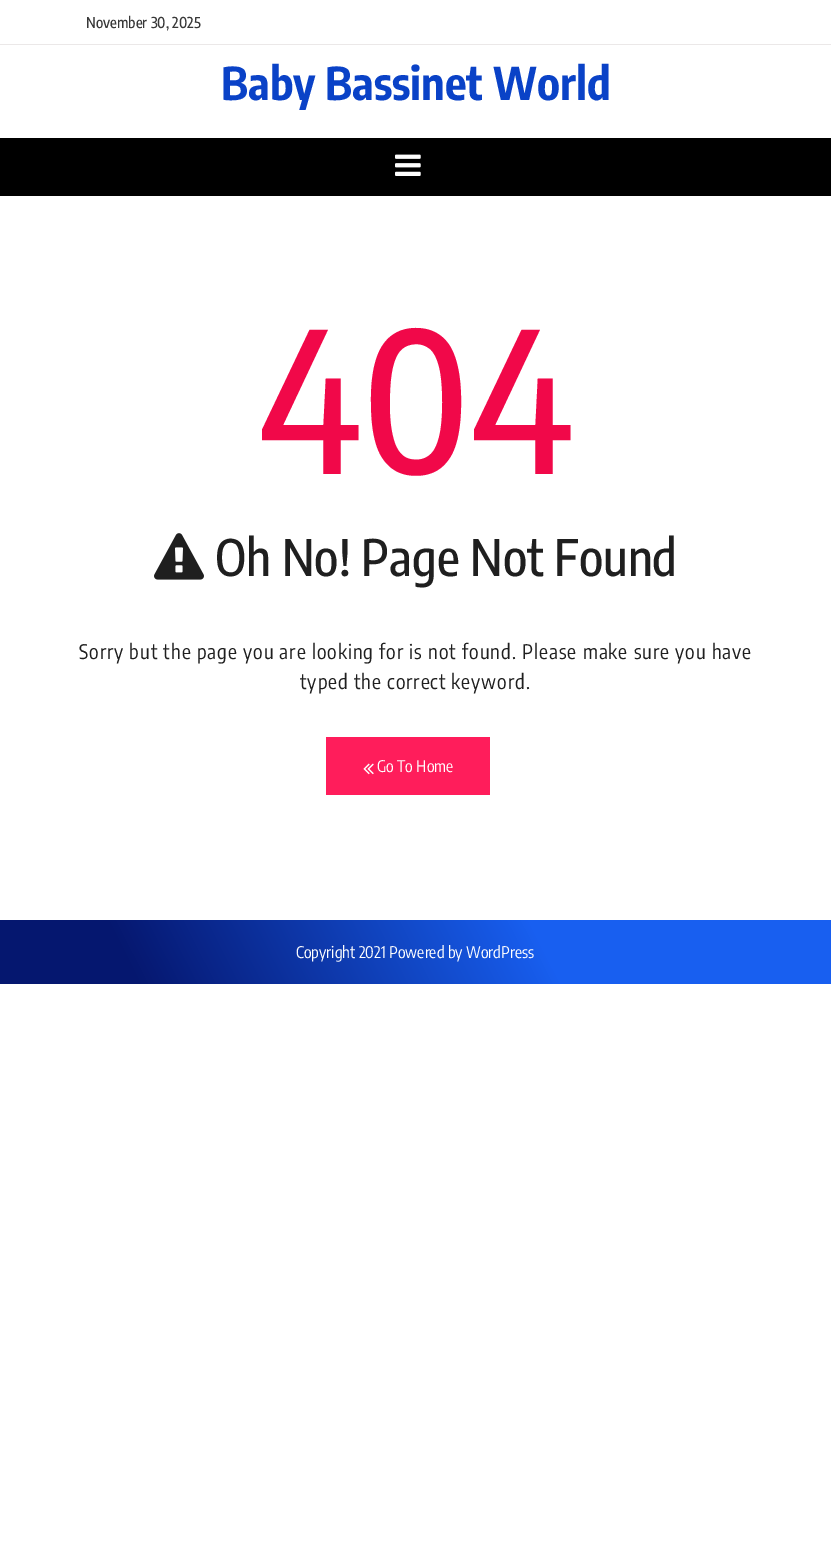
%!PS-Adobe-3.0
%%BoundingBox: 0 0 831 1566
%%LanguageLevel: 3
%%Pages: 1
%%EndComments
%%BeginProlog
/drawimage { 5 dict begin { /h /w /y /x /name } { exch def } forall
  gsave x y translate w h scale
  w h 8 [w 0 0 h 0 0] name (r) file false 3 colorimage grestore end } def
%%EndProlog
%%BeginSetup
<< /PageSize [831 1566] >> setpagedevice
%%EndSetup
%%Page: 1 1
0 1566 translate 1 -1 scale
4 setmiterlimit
1 setgray
0 0 831 1566 rectfill
0.922 0.91 0.91 setrgbcolor
0 44 831 1 rectfill
0 setgray
0 138 831 58 rectfill
(images/1.raw) 395 154 26 22 drawimage
(images/2.raw) 154 533 50 47 drawimage
1 0.114 0.357 setrgbcolor
326 737 164 58 rectfill
(images/3.raw) 363 763 11 12 drawimage
gsave newpath 0 920 moveto 831 920 lineto 831 984 lineto 0 984 lineto closepath clip newpath
<< /ShadingType 2 /ColorSpace /DeviceRGB /Coords [72 1126 759 778] /Extend [true true] /Function << /FunctionType 3 /Domain [0 1] /Functions [<< /FunctionType 2 /Domain [0 1] /C0 [0.02 0.09 0.435] /C1 [0.02 0.09 0.435] /N 1 >> << /FunctionType 2 /Domain [0 1] /C0 [0.02 0.09 0.435] /C1 [0.094 0.373 0.941] /N 1 >> << /FunctionType 2 /Domain [0 1] /C0 [0.094 0.373 0.941] /C1 [0.094 0.373 0.941] /N 1 >>] /Bounds [0.16 0.65] /Encode [0 1 0 1 0 1] >> >> shfill grestore
/EncodeSansCondensed-Medium [15 0 0 -15 0 0] selectfont
0.22 setgray
86 28 moveto (November 30, 2025) show
/EncodeSansCondensed-Bold [45 0 0 -45 0 0] selectfont
0.039 0.259 0.78 setrgbcolor
221 100 moveto (Baby Bassinet World) show
/EncodeSansCondensed-Medium [195 0 0 -195 0 0] selectfont
0.945 0.031 0.286 setrgbcolor
258 474 moveto (404) show
/EncodeSansCondensed-Medium [50 0 0 -50 0 0] selectfont
0.122 setgray
215 576 moveto (Oh No! Page Not Found) show
/EncodeSansCondensed-Regular [20 0 0 -20 0 0] selectfont
79 659 moveto 1 0 (Sorry but the page you are looking for is not found. Please make sure you have) ashow
300 689 moveto 1 0 (typed the correct keyword.) ashow
/EncodeSansCondensed-Regular [16 0 0 -16 0 0] selectfont
1 setgray
377 772 moveto (Go To Home) show
296 958 moveto (Copyright 2021 Powered by WordPress) show
showpage
%%EOF
